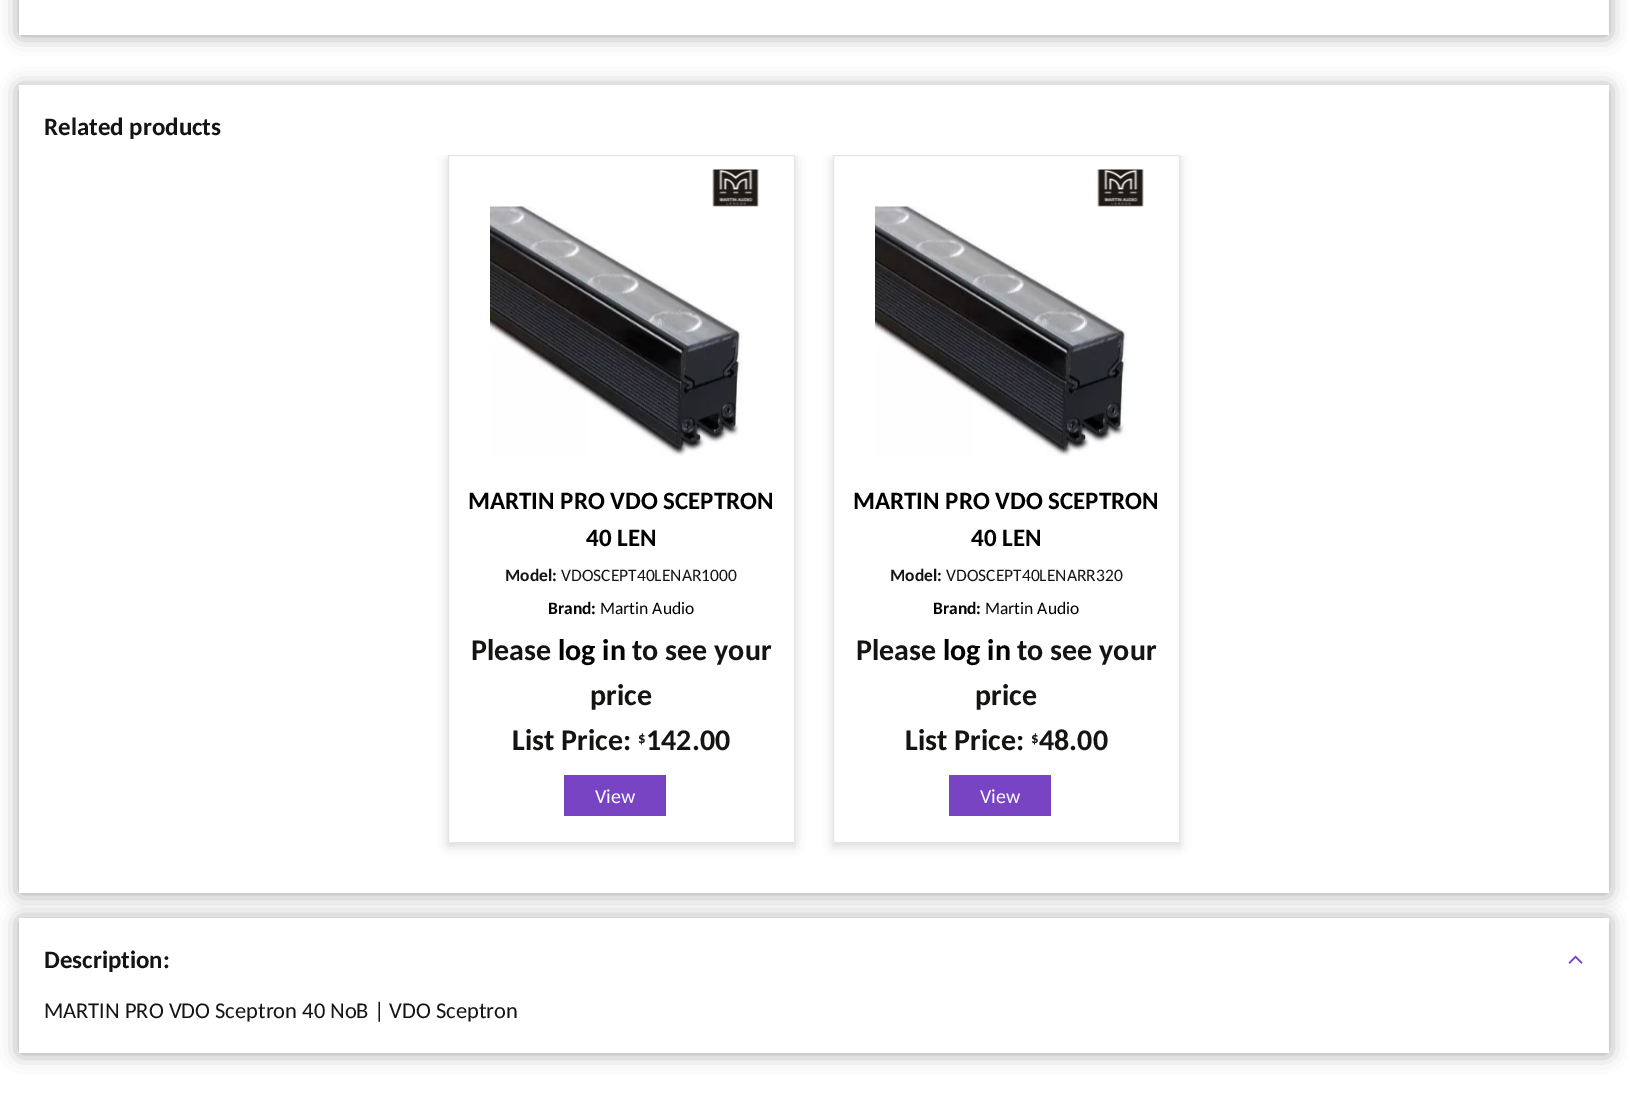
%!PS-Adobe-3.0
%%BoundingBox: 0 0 1627 1093
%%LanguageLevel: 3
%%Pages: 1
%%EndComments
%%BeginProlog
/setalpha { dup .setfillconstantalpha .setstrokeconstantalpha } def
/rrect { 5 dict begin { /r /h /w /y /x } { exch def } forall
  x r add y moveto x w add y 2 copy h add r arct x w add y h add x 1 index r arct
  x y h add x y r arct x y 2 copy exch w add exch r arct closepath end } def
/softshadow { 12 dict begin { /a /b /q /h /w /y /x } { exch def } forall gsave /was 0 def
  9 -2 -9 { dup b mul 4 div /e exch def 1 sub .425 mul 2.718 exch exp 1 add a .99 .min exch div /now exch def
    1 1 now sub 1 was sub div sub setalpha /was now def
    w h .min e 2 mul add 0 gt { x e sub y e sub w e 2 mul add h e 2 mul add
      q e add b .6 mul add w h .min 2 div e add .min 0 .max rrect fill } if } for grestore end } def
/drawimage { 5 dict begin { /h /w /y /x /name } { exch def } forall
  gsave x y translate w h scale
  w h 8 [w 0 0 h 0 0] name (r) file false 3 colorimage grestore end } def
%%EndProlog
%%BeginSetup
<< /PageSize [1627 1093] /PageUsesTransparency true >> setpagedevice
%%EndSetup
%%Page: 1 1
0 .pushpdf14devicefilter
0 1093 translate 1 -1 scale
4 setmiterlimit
1 setgray
0 0 1627 1093 rectfill
0.196 setgray
20 -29 1588 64 0 9.5 0.5 softshadow
1 setgray
19 0 1590 35 rectfill
0.196 setgray
20 88 1588 805 0 9.5 0.5 softshadow
1 setgray
19 85 1590 808 rectfill
gsave
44 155 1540 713 rectclip
0.196 setgray
448 159 347 687 0 5 0.2 softshadow
grestore
newpath 448.5 155.5 moveto 794.5 155.5 lineto 794.5 842.5 lineto 448.5 842.5 lineto closepath gsave fill grestore
0.902 setgray
stroke
(images/1.raw) 490 206 252 250 drawimage
(images/2.raw) 712 169 47 38 drawimage
0.471 0.267 0.769 setrgbcolor
564 775 102 41 rectfill
gsave
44 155 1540 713 rectclip
0.196 setgray
833 159 347 687 0 5 0.2 softshadow
grestore
1 setgray
newpath 833.5 155.5 moveto 1179.5 155.5 lineto 1179.5 842.5 lineto 833.5 842.5 lineto closepath gsave fill grestore
0.902 setgray
stroke
(images/1.raw) 875 206 252 250 drawimage
(images/2.raw) 1097 169 47 38 drawimage
0.471 0.267 0.769 setrgbcolor
949 775 102 41 rectfill
0.196 setgray
20 920 1588 133 0 9.5 0.5 softshadow
1 setgray
19 918 1590 135 rectfill
(images/3.raw) 1568 955 15 9 drawimage
/Carlito-Bold [25 0 0 -25 0 0] selectfont
0.078 0.078 0.071 setrgbcolor
44 135 moveto (Related products) show
0 setgray
468 509 moveto (MARTIN PRO VDO SCEPTRON) show
586 546 moveto (40 LEN) show
/Carlito-Bold [17.5 0 0 -17.5 0 0] selectfont
0.078 0.078 0.071 setrgbcolor
505 581 moveto (Model:) show
/Carlito-Regular [17.5 0 0 -17.5 0 0] selectfont
561 581 moveto (VDOSCEPT40LENAR1000) show
/Carlito-Bold [17.5 0 0 -17.5 0 0] selectfont
0 setgray
548 614 moveto (Brand:) show
/Carlito-Regular [17.5 0 0 -17.5 0 0] selectfont
600 614 moveto (Martin Audio) show
/Carlito-Bold [30 0 0 -30 0 0] selectfont
0.078 0.078 0.071 setrgbcolor
471 660 moveto (Please) show
0 setgray
558 660 moveto (log in) show
0.078 0.078 0.071 setrgbcolor
632 660 moveto (to see your) show
590 705 moveto (price) show
512 750 moveto (List Price:) show
/Carlito-Bold [15 0 0 -15 0 0] selectfont
638 743 moveto ($) show
/Carlito-Bold [30 0 0 -30 0 0] selectfont
646 750 moveto (142.00) show
/Carlito-Regular [20 0 0 -20 0 0] selectfont
1 setgray
595 803 moveto (View) show
/Carlito-Bold [25 0 0 -25 0 0] selectfont
0 setgray
853 509 moveto (MARTIN PRO VDO SCEPTRON) show
971 546 moveto (40 LEN) show
/Carlito-Bold [17.5 0 0 -17.5 0 0] selectfont
0.078 0.078 0.071 setrgbcolor
890 581 moveto (Model:) show
/Carlito-Regular [17.5 0 0 -17.5 0 0] selectfont
946 581 moveto (VDOSCEPT40LENARR320) show
/Carlito-Bold [17.5 0 0 -17.5 0 0] selectfont
0 setgray
933 614 moveto (Brand:) show
/Carlito-Regular [17.5 0 0 -17.5 0 0] selectfont
985 614 moveto (Martin Audio) show
/Carlito-Bold [30 0 0 -30 0 0] selectfont
0.078 0.078 0.071 setrgbcolor
856 660 moveto (Please) show
0 setgray
943 660 moveto (log in) show
0.078 0.078 0.071 setrgbcolor
1017 660 moveto (to see your) show
975 705 moveto (price) show
905 750 moveto (List Price:) show
/Carlito-Bold [15 0 0 -15 0 0] selectfont
1031 743 moveto ($) show
/Carlito-Bold [30 0 0 -30 0 0] selectfont
1039 750 moveto (48.00) show
/Carlito-Regular [20 0 0 -20 0 0] selectfont
1 setgray
980 803 moveto (View) show
/Carlito-Bold [25 0 0 -25 0 0] selectfont
0.078 0.078 0.071 setrgbcolor
44 968 moveto (Description:) show
/Carlito-Regular [22.5 0 0 -22.5 0 0] selectfont
44 1018 moveto (MARTIN PRO VDO Sceptron 40 NoB | VDO Sceptron) show
.poppdf14devicefilter showpage
%%EOF
